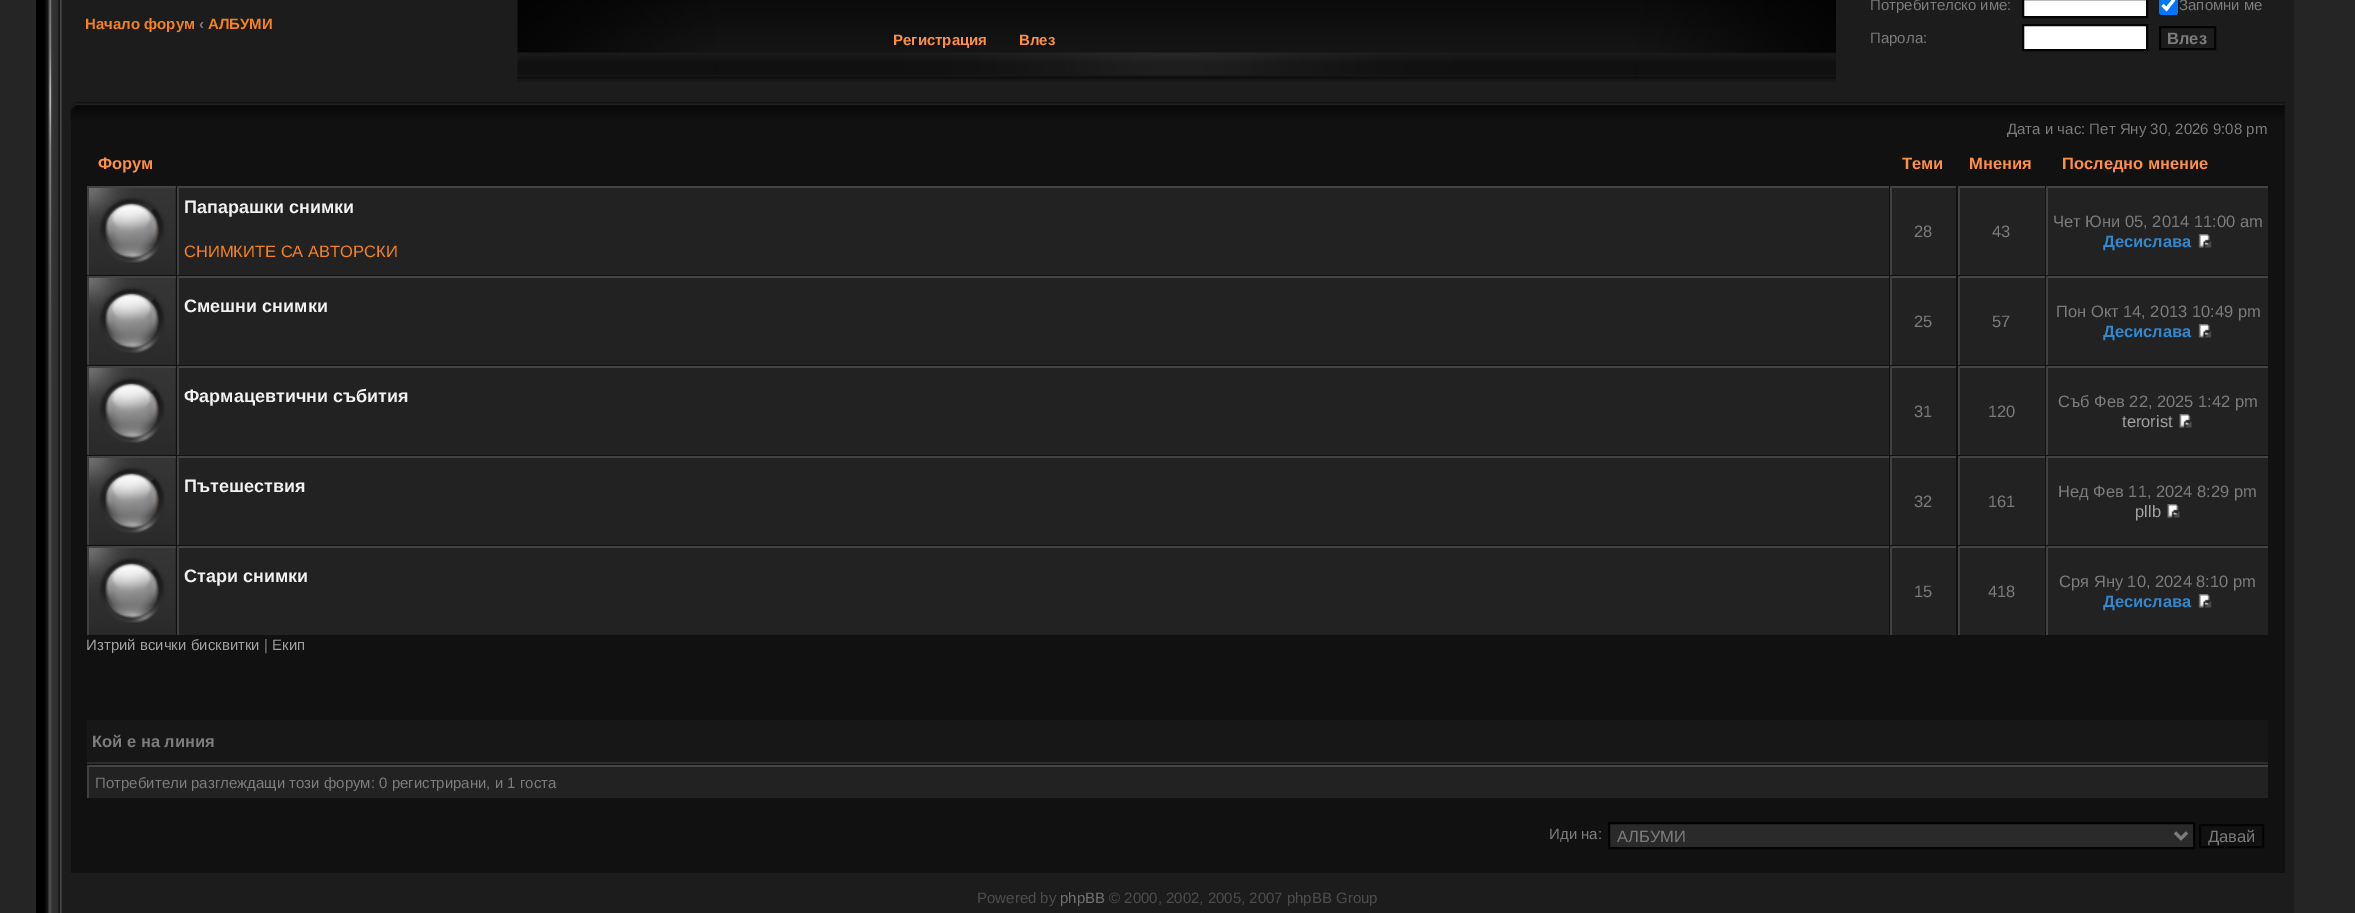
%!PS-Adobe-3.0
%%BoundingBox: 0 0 2355 913
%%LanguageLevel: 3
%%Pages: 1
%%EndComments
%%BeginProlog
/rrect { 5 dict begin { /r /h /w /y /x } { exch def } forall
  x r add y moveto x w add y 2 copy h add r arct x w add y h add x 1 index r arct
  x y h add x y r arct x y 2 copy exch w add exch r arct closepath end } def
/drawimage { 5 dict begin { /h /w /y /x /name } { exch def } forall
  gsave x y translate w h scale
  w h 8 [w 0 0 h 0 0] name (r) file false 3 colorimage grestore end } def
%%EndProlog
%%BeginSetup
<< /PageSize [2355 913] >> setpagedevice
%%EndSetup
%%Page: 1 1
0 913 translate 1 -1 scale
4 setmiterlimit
0.145 setgray
0 0 2355 913 rectfill
0.11 setgray
62 0 2232 913 rectfill
(images/1.raw) 36 0 26 913 drawimage
(images/2.raw) 517 0 1319 82 drawimage
1 setgray
newpath 2023 -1 moveto 2147 -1 lineto 2147 17 lineto 2023 17 lineto closepath gsave fill grestore
0.016 setgray
2 setlinewidth
stroke
0 0.459 1 setrgbcolor
2159 -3 19 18 3 rrect fill
1 setgray
3.1 setlinewidth
newpath 2162.5 5 moveto 2166.5 9 lineto 2174 -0.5 lineto stroke
newpath 2023 25 moveto 2147 25 lineto 2147 50 lineto 2023 50 lineto closepath gsave fill grestore
0.016 setgray
2 setlinewidth
stroke
2160 27 55 22 rectstroke
0.067 setgray
71 102 2214 771 rectfill
(images/3.raw) 70 102 2215 19 drawimage
(images/4.raw) 70 102 6 9 drawimage
0.133 setgray
89 188 87 87 rectfill
(images/5.raw) 89 188 87 87 drawimage
0.267 setgray
87 186 89 2 rectfill
0.251 setgray
87 186 2 89 rectfill
(images/6.raw) 99 197 66 66 drawimage
0.133 setgray
179 188 1710 87 rectfill
0.267 setgray
177 186 1712 2 rectfill
0.251 setgray
177 186 2 89 rectfill
0.133 setgray
1892 188 64 87 rectfill
0.267 setgray
1890 186 66 2 rectfill
0.251 setgray
1890 186 2 89 rectfill
0.133 setgray
1960 188 85 87 rectfill
0.267 setgray
1958 186 87 2 rectfill
0.251 setgray
1958 186 2 89 rectfill
0.133 setgray
2048 188 220 87 rectfill
0.267 setgray
2046 186 222 2 rectfill
0.251 setgray
2046 186 2 89 rectfill
(images/7.raw) 2198 234 14 14 drawimage
0.133 setgray
89 278 87 87 rectfill
(images/5.raw) 89 278 87 87 drawimage
0.267 setgray
87 276 89 2 rectfill
0.251 setgray
87 276 2 89 rectfill
(images/6.raw) 99 287 66 66 drawimage
0.133 setgray
179 278 1710 87 rectfill
0.267 setgray
177 276 1712 2 rectfill
0.251 setgray
177 276 2 89 rectfill
0.133 setgray
1892 278 64 87 rectfill
0.267 setgray
1890 276 66 2 rectfill
0.251 setgray
1890 276 2 89 rectfill
0.133 setgray
1960 278 85 87 rectfill
0.267 setgray
1958 276 87 2 rectfill
0.251 setgray
1958 276 2 89 rectfill
0.133 setgray
2048 278 220 87 rectfill
0.267 setgray
2046 276 222 2 rectfill
0.251 setgray
2046 276 2 89 rectfill
(images/7.raw) 2198 324 14 14 drawimage
0.133 setgray
89 368 87 87 rectfill
(images/5.raw) 89 368 87 87 drawimage
0.267 setgray
87 366 89 2 rectfill
0.251 setgray
87 366 2 89 rectfill
(images/6.raw) 99 377 66 66 drawimage
0.133 setgray
179 368 1710 87 rectfill
0.267 setgray
177 366 1712 2 rectfill
0.251 setgray
177 366 2 89 rectfill
0.133 setgray
1892 368 64 87 rectfill
0.267 setgray
1890 366 66 2 rectfill
0.251 setgray
1890 366 2 89 rectfill
0.133 setgray
1960 368 85 87 rectfill
0.267 setgray
1958 366 87 2 rectfill
0.251 setgray
1958 366 2 89 rectfill
0.133 setgray
2048 368 220 87 rectfill
0.267 setgray
2046 366 222 2 rectfill
0.251 setgray
2046 366 2 89 rectfill
(images/8.raw) 2179 414 13 14 drawimage
0.133 setgray
89 458 87 87 rectfill
(images/5.raw) 89 458 87 87 drawimage
0.267 setgray
87 456 89 2 rectfill
0.251 setgray
87 456 2 89 rectfill
(images/6.raw) 99 467 66 66 drawimage
0.133 setgray
179 458 1710 87 rectfill
0.267 setgray
177 456 1712 2 rectfill
0.251 setgray
177 456 2 89 rectfill
0.133 setgray
1892 458 64 87 rectfill
0.267 setgray
1890 456 66 2 rectfill
0.251 setgray
1890 456 2 89 rectfill
0.133 setgray
1960 458 85 87 rectfill
0.267 setgray
1958 456 87 2 rectfill
0.251 setgray
1958 456 2 89 rectfill
0.133 setgray
2048 458 220 87 rectfill
0.267 setgray
2046 456 222 2 rectfill
0.251 setgray
2046 456 2 89 rectfill
(images/8.raw) 2167 504 13 14 drawimage
0.133 setgray
89 548 87 87 rectfill
(images/5.raw) 89 548 87 87 drawimage
0.267 setgray
87 546 89 2 rectfill
0.251 setgray
87 546 2 89 rectfill
(images/6.raw) 99 557 66 66 drawimage
0.133 setgray
179 548 1710 87 rectfill
0.267 setgray
177 546 1712 2 rectfill
0.251 setgray
177 546 2 89 rectfill
0.133 setgray
1892 548 64 87 rectfill
0.267 setgray
1890 546 66 2 rectfill
0.251 setgray
1890 546 2 89 rectfill
0.133 setgray
1960 548 85 87 rectfill
0.267 setgray
1958 546 87 2 rectfill
0.251 setgray
1958 546 2 89 rectfill
0.133 setgray
2048 548 220 87 rectfill
0.267 setgray
2046 546 222 2 rectfill
0.251 setgray
2046 546 2 89 rectfill
(images/7.raw) 2198 594 14 14 drawimage
0.09 setgray
87 720 2181 42 rectfill
0.176 setgray
87 762 2181 2 rectfill
0.133 setgray
89 767 2179 31 rectfill
0.267 setgray
87 765 2181 2 rectfill
0.251 setgray
87 765 2 33 rectfill
0.165 setgray
newpath 1609 823 moveto 2194 823 lineto 2194 848 lineto 1609 848 lineto closepath gsave fill grestore
0.016 setgray
stroke
0.486 setgray
3 setlinewidth
newpath 2175 832.5 moveto 2181 838.5 lineto 2187 832.5 lineto stroke
0.016 setgray
2 setlinewidth
2200 825 63 22 rectstroke
/LiberationSans-Bold [15 0 0 -15 0 0] selectfont
0.961 0.51 0.125 setrgbcolor
85 29 moveto (Начало форум) show
0.486 setgray
199 29 moveto (‹) show
0.961 0.51 0.125 setrgbcolor
208 29 moveto (АЛБУМИ) show
/LiberationSans-Regular [15 0 0 -15 0 0] selectfont
0.486 setgray
1870 10 moveto (Потребителско име:) show
2179 10 moveto (Запомни ме) show
1870 43 moveto (Парола:) show
/LiberationSans-Bold [16.5 0 0 -16.5 0 0] selectfont
2167 44 moveto (Влез) show
/LiberationSans-Bold [15 0 0 -15 0 0] selectfont
0.988 0.565 0.286 setrgbcolor
893 45 moveto (Регистрация) show
1019 45 moveto (Влез) show
/LiberationSans-Regular [15 0 0 -15 0 0] selectfont
0.486 setgray
2007 134 moveto (Дата и час: Пет Яну 30, 2026 9:08 pm) show
/LiberationSans-Bold [16.5 0 0 -16.5 0 0] selectfont
0.988 0.565 0.286 setrgbcolor
98 169 moveto (Форум) show
1902 169 moveto (Теми) show
1969 169 moveto (Мнения) show
2062 169 moveto (Последно мнение) show
/LiberationSans-Bold [18 0 0 -18 0 0] selectfont
0.949 setgray
184 213 moveto (Папарашки снимки) show
/LiberationSans-Regular [16.5 0 0 -16.5 0 0] selectfont
0.961 0.51 0.125 setrgbcolor
184 257 moveto (СНИМКИТЕ СА АВТОРСКИ) show
0.486 setgray
1914 237 moveto (28) show
1992 237 moveto (43) show
2053 227 moveto (Чет Юни 05, 2014 11:00 am) show
/LiberationSans-Bold [16.5 0 0 -16.5 0 0] selectfont
0.2 0.529 0.804 setrgbcolor
2103 247 moveto (Десислава) show
/LiberationSans-Bold [18 0 0 -18 0 0] selectfont
0.949 setgray
184 312 moveto (Смешни снимки) show
/LiberationSans-Regular [16.5 0 0 -16.5 0 0] selectfont
0.486 setgray
1914 327 moveto (25) show
1992 327 moveto (57) show
2056 317 moveto (Пон Окт 14, 2013 10:49 pm) show
/LiberationSans-Bold [16.5 0 0 -16.5 0 0] selectfont
0.2 0.529 0.804 setrgbcolor
2103 337 moveto (Десислава) show
/LiberationSans-Bold [18 0 0 -18 0 0] selectfont
0.949 setgray
184 402 moveto (Фармацевтични събития) show
/LiberationSans-Regular [16.5 0 0 -16.5 0 0] selectfont
0.486 setgray
1914 417 moveto (31) show
1988 417 moveto (120) show
2058 407 moveto (Съб Фев 22, 2025 1:42 pm) show
0.631 setgray
2122 427 moveto (terorist) show
/LiberationSans-Bold [18 0 0 -18 0 0] selectfont
0.949 setgray
184 492 moveto (Пътешествия) show
/LiberationSans-Regular [16.5 0 0 -16.5 0 0] selectfont
0.486 setgray
1914 507 moveto (32) show
1988 507 moveto (161) show
2058 497 moveto (Нед Фев 11, 2024 8:29 pm) show
0.631 setgray
2135 517 moveto (pllb) show
/LiberationSans-Bold [18 0 0 -18 0 0] selectfont
0.949 setgray
184 582 moveto (Стари снимки) show
/LiberationSans-Regular [16.5 0 0 -16.5 0 0] selectfont
0.486 setgray
1914 597 moveto (15) show
1988 597 moveto (418) show
2059 587 moveto (Сря Яну 10, 2024 8:10 pm) show
/LiberationSans-Bold [16.5 0 0 -16.5 0 0] selectfont
0.2 0.529 0.804 setrgbcolor
2103 607 moveto (Десислава) show
/LiberationSans-Regular [15 0 0 -15 0 0] selectfont
0.631 setgray
86 650 moveto (Изтрий всички бисквитки) show
0.486 setgray
264 650 moveto (|) show
0.631 setgray
272 650 moveto (Екип) show
/LiberationSans-Bold [16.5 0 0 -16.5 0 0] selectfont
0.486 setgray
92 747 moveto (Кой е на линия) show
/LiberationSans-Regular [15 0 0 -15 0 0] selectfont
95 788 moveto (Потребители разглеждащи този форум: 0 регистрирани, и 1 госта) show
1549 839 moveto (Иди на:) show
/LiberationSans-Regular [16.5 0 0 -16.5 0 0] selectfont
1617 842 moveto (АЛБУМИ) show
2208 842 moveto (Давай) show
/LiberationSans-Regular [15 0 0 -15 0 0] selectfont
0.302 setgray
977 903 moveto (Powered by) show
0.443 setgray
1060 903 moveto (phpBB) show
0.302 setgray
1109 903 moveto (© 2000, 2002, 2005, 2007 phpBB Group) show
showpage
%%EOF
